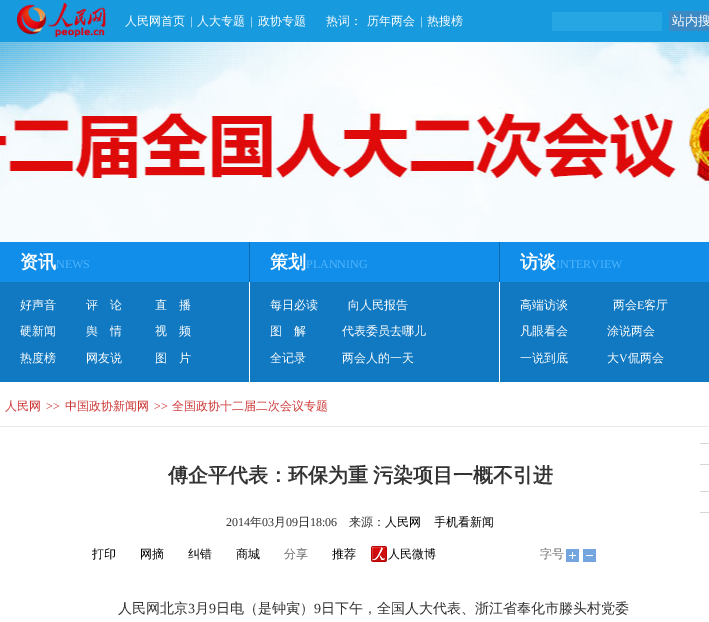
%!PS-Adobe-3.0
%%BoundingBox: 0 0 709 622
%%LanguageLevel: 3
%%Pages: 1
%%EndComments
%%BeginProlog
/drawimage { 5 dict begin { /h /w /y /x /name } { exch def } forall
  gsave x y translate w h scale
  w h 8 [w 0 0 h 0 0] name (r) file false 3 colorimage grestore end } def
%%EndProlog
%%BeginSetup
<< /PageSize [709 622] >> setpagedevice
%%EndSetup
%%Page: 1 1
0 622 translate 1 -1 scale
4 setmiterlimit
1 setgray
0 0 709 622 rectfill
0.094 0.604 0.871 setrgbcolor
0 0 709 42 rectfill
(images/1.raw) 17 3 89 34 drawimage
0.149 0.655 0.89 setrgbcolor
552 12 110 19 rectfill
0.235 0.537 0.765 setrgbcolor
669 11 40 20 rectfill
(images/2.raw) 0 42 709 200 drawimage
0.031 0.412 0.686 setrgbcolor
249 242 251 40 rectfill
0.063 0.557 0.914 setrgbcolor
0 242 249 40 rectfill
0.067 0.471 0.761 setrgbcolor
0 282 249 100 rectfill
0.063 0.557 0.914 setrgbcolor
250 242 249 40 rectfill
0.067 0.471 0.761 setrgbcolor
250 282 249 100 rectfill
0.063 0.557 0.914 setrgbcolor
500 242 209 40 rectfill
0.067 0.471 0.761 setrgbcolor
500 282 209 100 rectfill
0.922 setgray
0 426 709 1 rectfill
(images/3.raw) 371 546 65 16 drawimage
(images/4.raw) 566 549 13 13 drawimage
(images/5.raw) 583 549 13 13 drawimage
0.843 setgray
700 443 9 1 rectfill
700 464 9 1 rectfill
700 491 9 1 rectfill
700 512 9 1 rectfill
/WenQuanYiZenHei-Medium [12 0 0 -12 0 0] selectfont
1 setgray
125 25 moveto (人民网首页) show
/LiberationSerif-Regular [12 0 0 -12 0 0] selectfont
190 25 moveto (|) show
/WenQuanYiZenHei-Medium [12 0 0 -12 0 0] selectfont
197 25 moveto (人大专题) show
/LiberationSerif-Regular [12 0 0 -12 0 0] selectfont
250 25 moveto (|) show
/WenQuanYiZenHei-Medium [12 0 0 -12 0 0] selectfont
258 25 moveto (政协专题) show
326 25 moveto (热词：) show
367 25 moveto (历年两会) show
/LiberationSerif-Regular [12 0 0 -12 0 0] selectfont
420 25 moveto (|) show
/WenQuanYiZenHei-Medium [12 0 0 -12 0 0] selectfont
427 25 moveto (热搜榜) show
/WenQuanYiZenHei-Medium [13 0 0 -13 0 0] selectfont
672 25 moveto (站内搜) show
/WenQuanYiZenHei-Bold [18 0 0 -18 0 0] selectfont
20 268 moveto (资讯) show
/LiberationSerif-Regular [12 0 0 -12 0 0] selectfont
0.298 0.706 1 setrgbcolor
56 268 moveto (NEWS) show
/WenQuanYiZenHei-Medium [12 0 0 -12 0 0] selectfont
1 setgray
20 309 moveto (好声音) show
86 309 moveto (评　论) show
155 309 moveto (直　播) show
20 335 moveto (硬新闻) show
86 335 moveto (舆　情) show
155 335 moveto (视　频) show
20 362 moveto (热度榜) show
86 362 moveto (网友说) show
155 362 moveto (图　片) show
/WenQuanYiZenHei-Bold [18 0 0 -18 0 0] selectfont
270 268 moveto (策划) show
/LiberationSerif-Regular [12 0 0 -12 0 0] selectfont
0.298 0.706 1 setrgbcolor
306 268 moveto (PLANNING) show
/WenQuanYiZenHei-Medium [12 0 0 -12 0 0] selectfont
1 setgray
270 309 moveto (每日必读) show
348 309 moveto (向人民报告) show
270 335 moveto (图　解) show
342 335 moveto (代表委员去哪儿) show
270 362 moveto (全记录) show
342 362 moveto (两会人的一天) show
/WenQuanYiZenHei-Bold [18 0 0 -18 0 0] selectfont
520 268 moveto (访谈) show
/LiberationSerif-Regular [12 0 0 -12 0 0] selectfont
0.298 0.706 1 setrgbcolor
556 268 moveto (INTERVIEW) show
/WenQuanYiZenHei-Medium [12 0 0 -12 0 0] selectfont
1 setgray
520 309 moveto (高端访谈) show
613 309 moveto (两会) show
/LiberationSerif-Regular [12 0 0 -12 0 0] selectfont
637 309 moveto (E) show
/WenQuanYiZenHei-Medium [12 0 0 -12 0 0] selectfont
644 309 moveto (客厅) show
520 335 moveto (凡眼看会) show
607 335 moveto (涂说两会) show
520 362 moveto (一说到底) show
607 362 moveto (大) show
/LiberationSerif-Regular [12 0 0 -12 0 0] selectfont
619 362 moveto (V) show
/WenQuanYiZenHei-Medium [12 0 0 -12 0 0] selectfont
628 362 moveto (侃两会) show
0.8 0.2 0.2 setrgbcolor
5 410 moveto (人民网) show
/LiberationSerif-Regular [12 0 0 -12 0 0] selectfont
46 410 moveto (>>) show
/WenQuanYiZenHei-Medium [12 0 0 -12 0 0] selectfont
65 410 moveto (中国政协新闻网) show
/LiberationSerif-Regular [12 0 0 -12 0 0] selectfont
154 410 moveto (>>) show
/WenQuanYiZenHei-Medium [12 0 0 -12 0 0] selectfont
172 410 moveto (全国政协十二届二次会议专题) show
/WenQuanYiZenHei-Bold [20 0 0 -20 0 0] selectfont
0.2 setgray
168 482 moveto (傅企平代表：环保为重) show
373 482 moveto (污染项目一概不引进) show
/LiberationSerif-Regular [12 0 0 -12 0 0] selectfont
226 526 moveto (2014) show
/WenQuanYiZenHei-Medium [12 0 0 -12 0 0] selectfont
250 526 moveto (年) show
/LiberationSerif-Regular [12 0 0 -12 0 0] selectfont
262 526 moveto (03) show
/WenQuanYiZenHei-Medium [12 0 0 -12 0 0] selectfont
274 526 moveto (月) show
/LiberationSerif-Regular [12 0 0 -12 0 0] selectfont
286 526 moveto (09) show
/WenQuanYiZenHei-Medium [12 0 0 -12 0 0] selectfont
298 526 moveto (日) show
/LiberationSerif-Regular [12 0 0 -12 0 0] selectfont
310 526 moveto (18:06) show
/WenQuanYiZenHei-Medium [12 0 0 -12 0 0] selectfont
349 526 moveto (来源：) show
0 setgray
385 526 moveto (人民网) show
434 526 moveto (手机看新闻) show
92 558 moveto (打印) show
140 558 moveto (网摘) show
188 558 moveto (纠错) show
236 558 moveto (商城) show
0.4 setgray
284 558 moveto (分享) show
0 setgray
332 558 moveto (推荐) show
0.4 setgray
540 558 moveto (字号) show
/WenQuanYiZenHei-Medium [14 0 0 -14 0 0] selectfont
0.2 setgray
118 613 moveto (人民网北京) show
/LiberationSerif-Regular [14 0 0 -14 0 0] selectfont
188 613 moveto (3) show
/WenQuanYiZenHei-Medium [14 0 0 -14 0 0] selectfont
195 613 moveto (月) show
/LiberationSerif-Regular [14 0 0 -14 0 0] selectfont
209 613 moveto (9) show
/WenQuanYiZenHei-Medium [14 0 0 -14 0 0] selectfont
216 613 moveto (日电（是钟寅）) show
/LiberationSerif-Regular [14 0 0 -14 0 0] selectfont
314 613 moveto (9) show
/WenQuanYiZenHei-Medium [14 0 0 -14 0 0] selectfont
321 613 moveto (日下午，全国人大代表、浙江省奉化市滕头村党委) show
showpage
%%EOF
